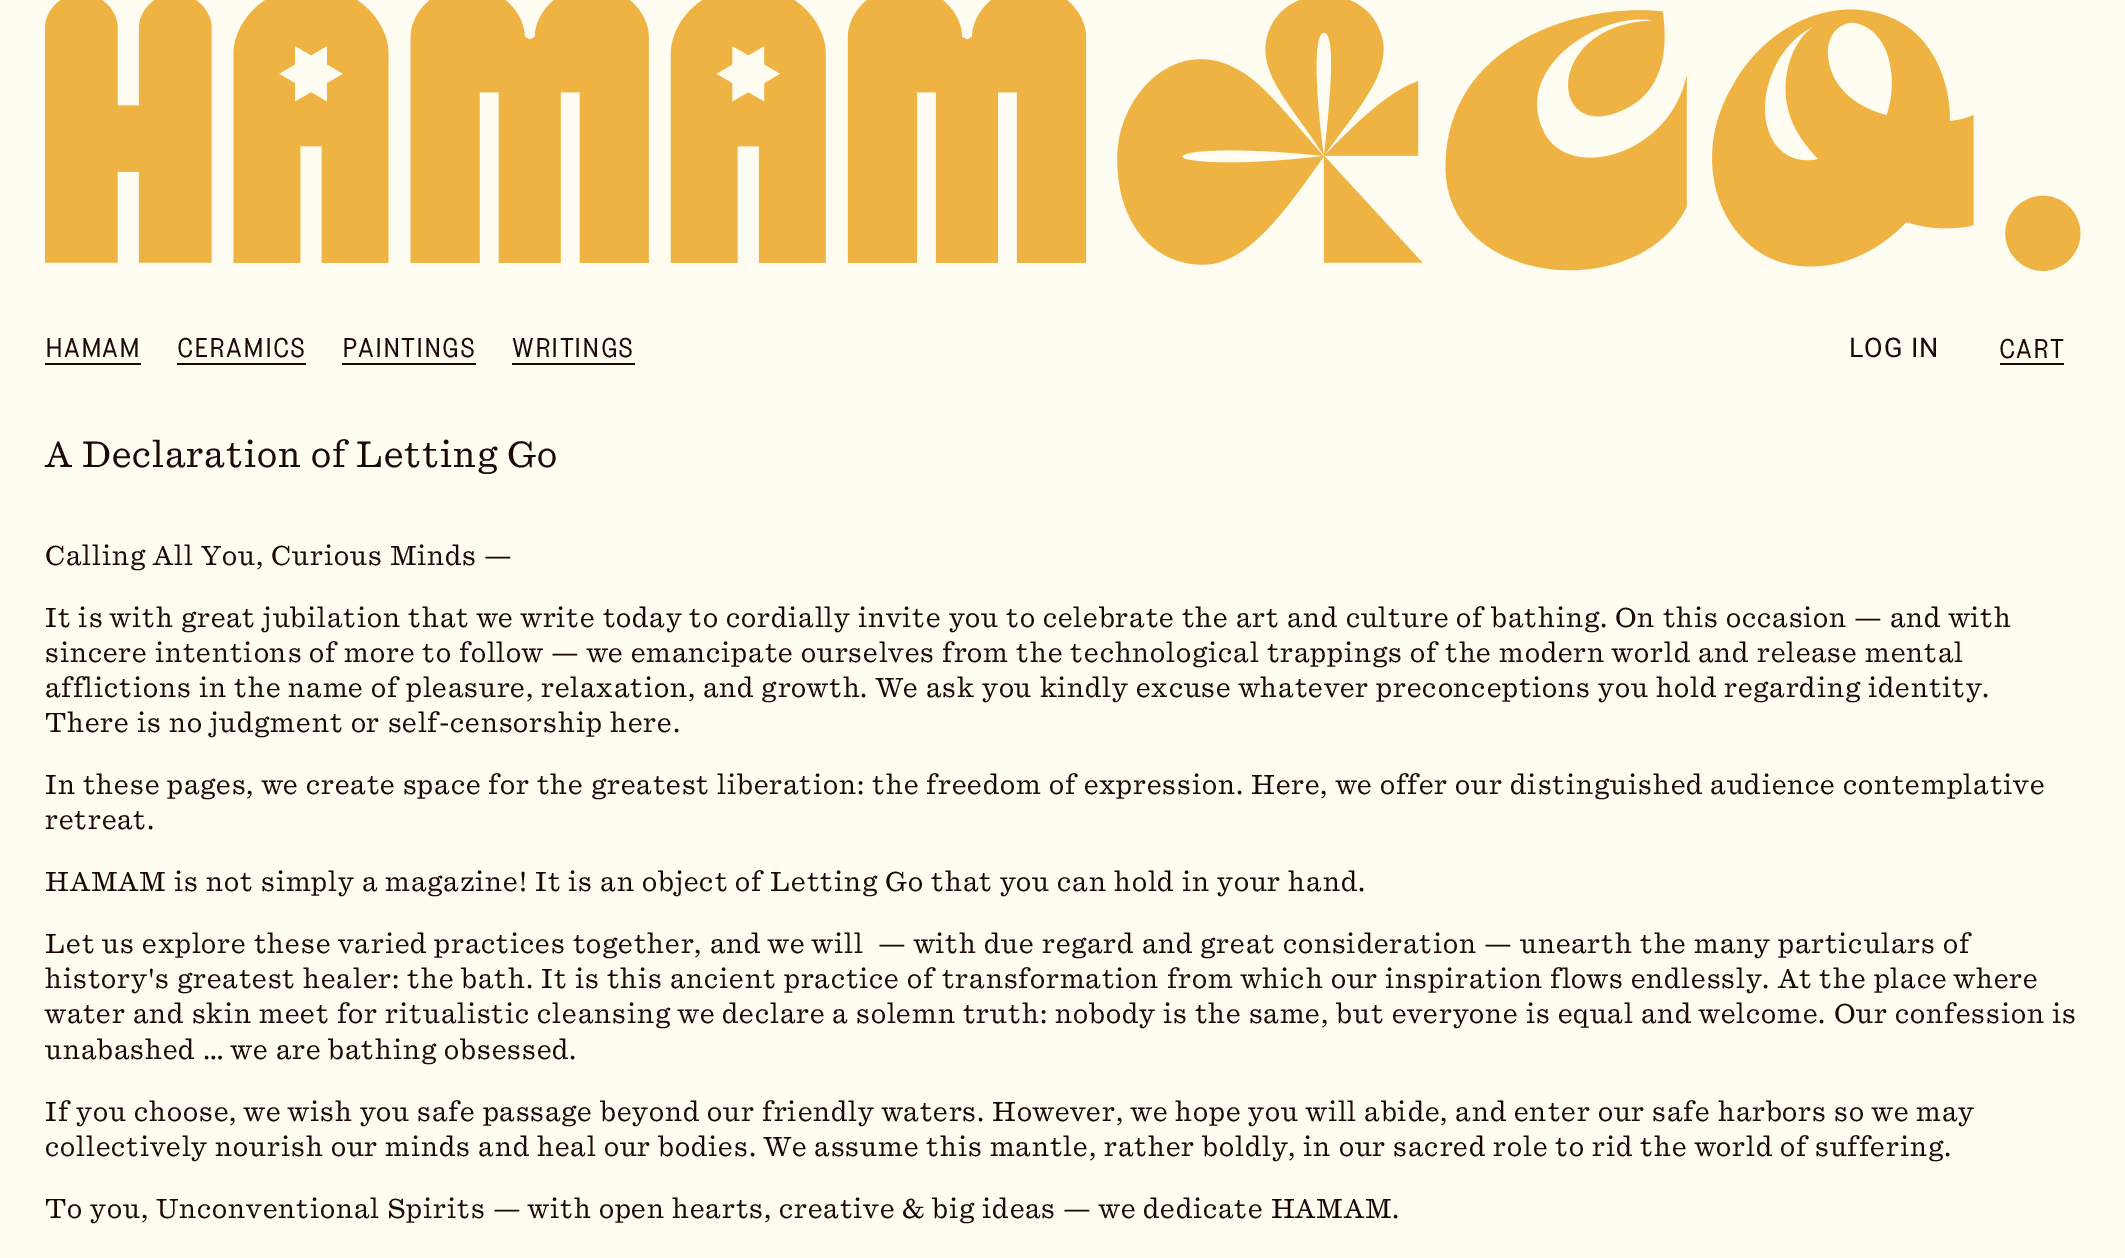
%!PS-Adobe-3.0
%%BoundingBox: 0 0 2125 1258
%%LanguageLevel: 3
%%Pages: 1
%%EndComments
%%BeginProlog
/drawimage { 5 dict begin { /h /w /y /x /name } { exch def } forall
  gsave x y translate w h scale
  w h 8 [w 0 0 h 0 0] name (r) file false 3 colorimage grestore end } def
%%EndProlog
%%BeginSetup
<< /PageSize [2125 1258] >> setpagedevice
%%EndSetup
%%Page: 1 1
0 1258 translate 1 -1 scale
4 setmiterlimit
1 0.988 0.949 setrgbcolor
0 0 2125 1258 rectfill
(images/1.raw) 45 0 2036 271 drawimage
0.106 0.035 0.02 setrgbcolor
45 363 96 2 rectfill
177 363 129 2 rectfill
342 363 134 2 rectfill
512 363 123 2 rectfill
2000 363 64 2 rectfill
/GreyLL-Regular [27 0 0 -27 0 0] selectfont
45 357 moveto 0.9 0 (HAMAM) ashow
177 357 moveto 0.9 0 (CERAMICS) ashow
342 357 moveto 0.9 0 (PAINTINGS) ashow
512 357 moveto 0.9 0 (WRITINGS) ashow
/Roboto-Regular [27 0 0 -27 0 0] selectfont
1849 357 moveto 0.9 0 (LOG IN) ashow
/GreyLL-Regular [27 0 0 -27 0 0] selectfont
1999 358 moveto 0.9 0 (CART) ashow
/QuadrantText-Regular [36 0 0 -36 0 0] selectfont
45 467 moveto 0.9 0 (A Declaration of Letting Go) ashow
/QuadrantText-Regular [27 0 0 -27 0 0] selectfont
45 565 moveto 0.9 0 (Calling All You, Curious Minds —) ashow
45 627 moveto 0.9 0 (It is with great jubilation that we write today to cordially invite you to celebrate the art and culture of bathing. On this occasion — and with) ashow
45 662 moveto 0.9 0 (sincere intentions of more to follow — we emancipate ourselves from the technological trappings of the modern world and release mental) ashow
45 697 moveto 0.9 0 (afflictions in the name of pleasure, relaxation, and growth. We ask you kindly excuse whatever preconceptions you hold regarding identity.) ashow
45 732 moveto 0.9 0 (There is no judgment or self-censorship here.) ashow
45 794 moveto 0.9 0 (In these pages, we create space for the greatest liberation: the freedom of expression. Here, we offer our distinguished audience contemplative) ashow
45 829 moveto 0.9 0 (retreat.) ashow
45 891 moveto 0.9 0 (HAMAM is not simply a magazine! It is an object of Letting Go that you can hold in your hand.) ashow
45 953 moveto 0.9 0 (Let us explore these varied practices together, and we will  — with due regard and great consideration — unearth the many particulars of) ashow
45 988 moveto 0.9 0 (history's greatest healer: the bath. It is this ancient practice of transformation from which our inspiration flows endlessly. At the place where) ashow
45 1023 moveto 0.9 0 (water and skin meet for ritualistic cleansing we declare a solemn truth: nobody is the same, but everyone is equal and welcome. Our confession is) ashow
45 1059 moveto 0.9 0 (unabashed … we are bathing obsessed.) ashow
45 1121 moveto 0.9 0 (If you choose, we wish you safe passage beyond our friendly waters. However, we hope you will abide, and enter our safe harbors so we may) ashow
45 1156 moveto 0.9 0 (collectively nourish our minds and heal our bodies. We assume this mantle, rather boldly, in our sacred role to rid the world of suffering.) ashow
45 1218 moveto 0.9 0 (To you, Unconventional Spirits — with open hearts, creative & big ideas — we dedicate HAMAM.) ashow
showpage
%%EOF
